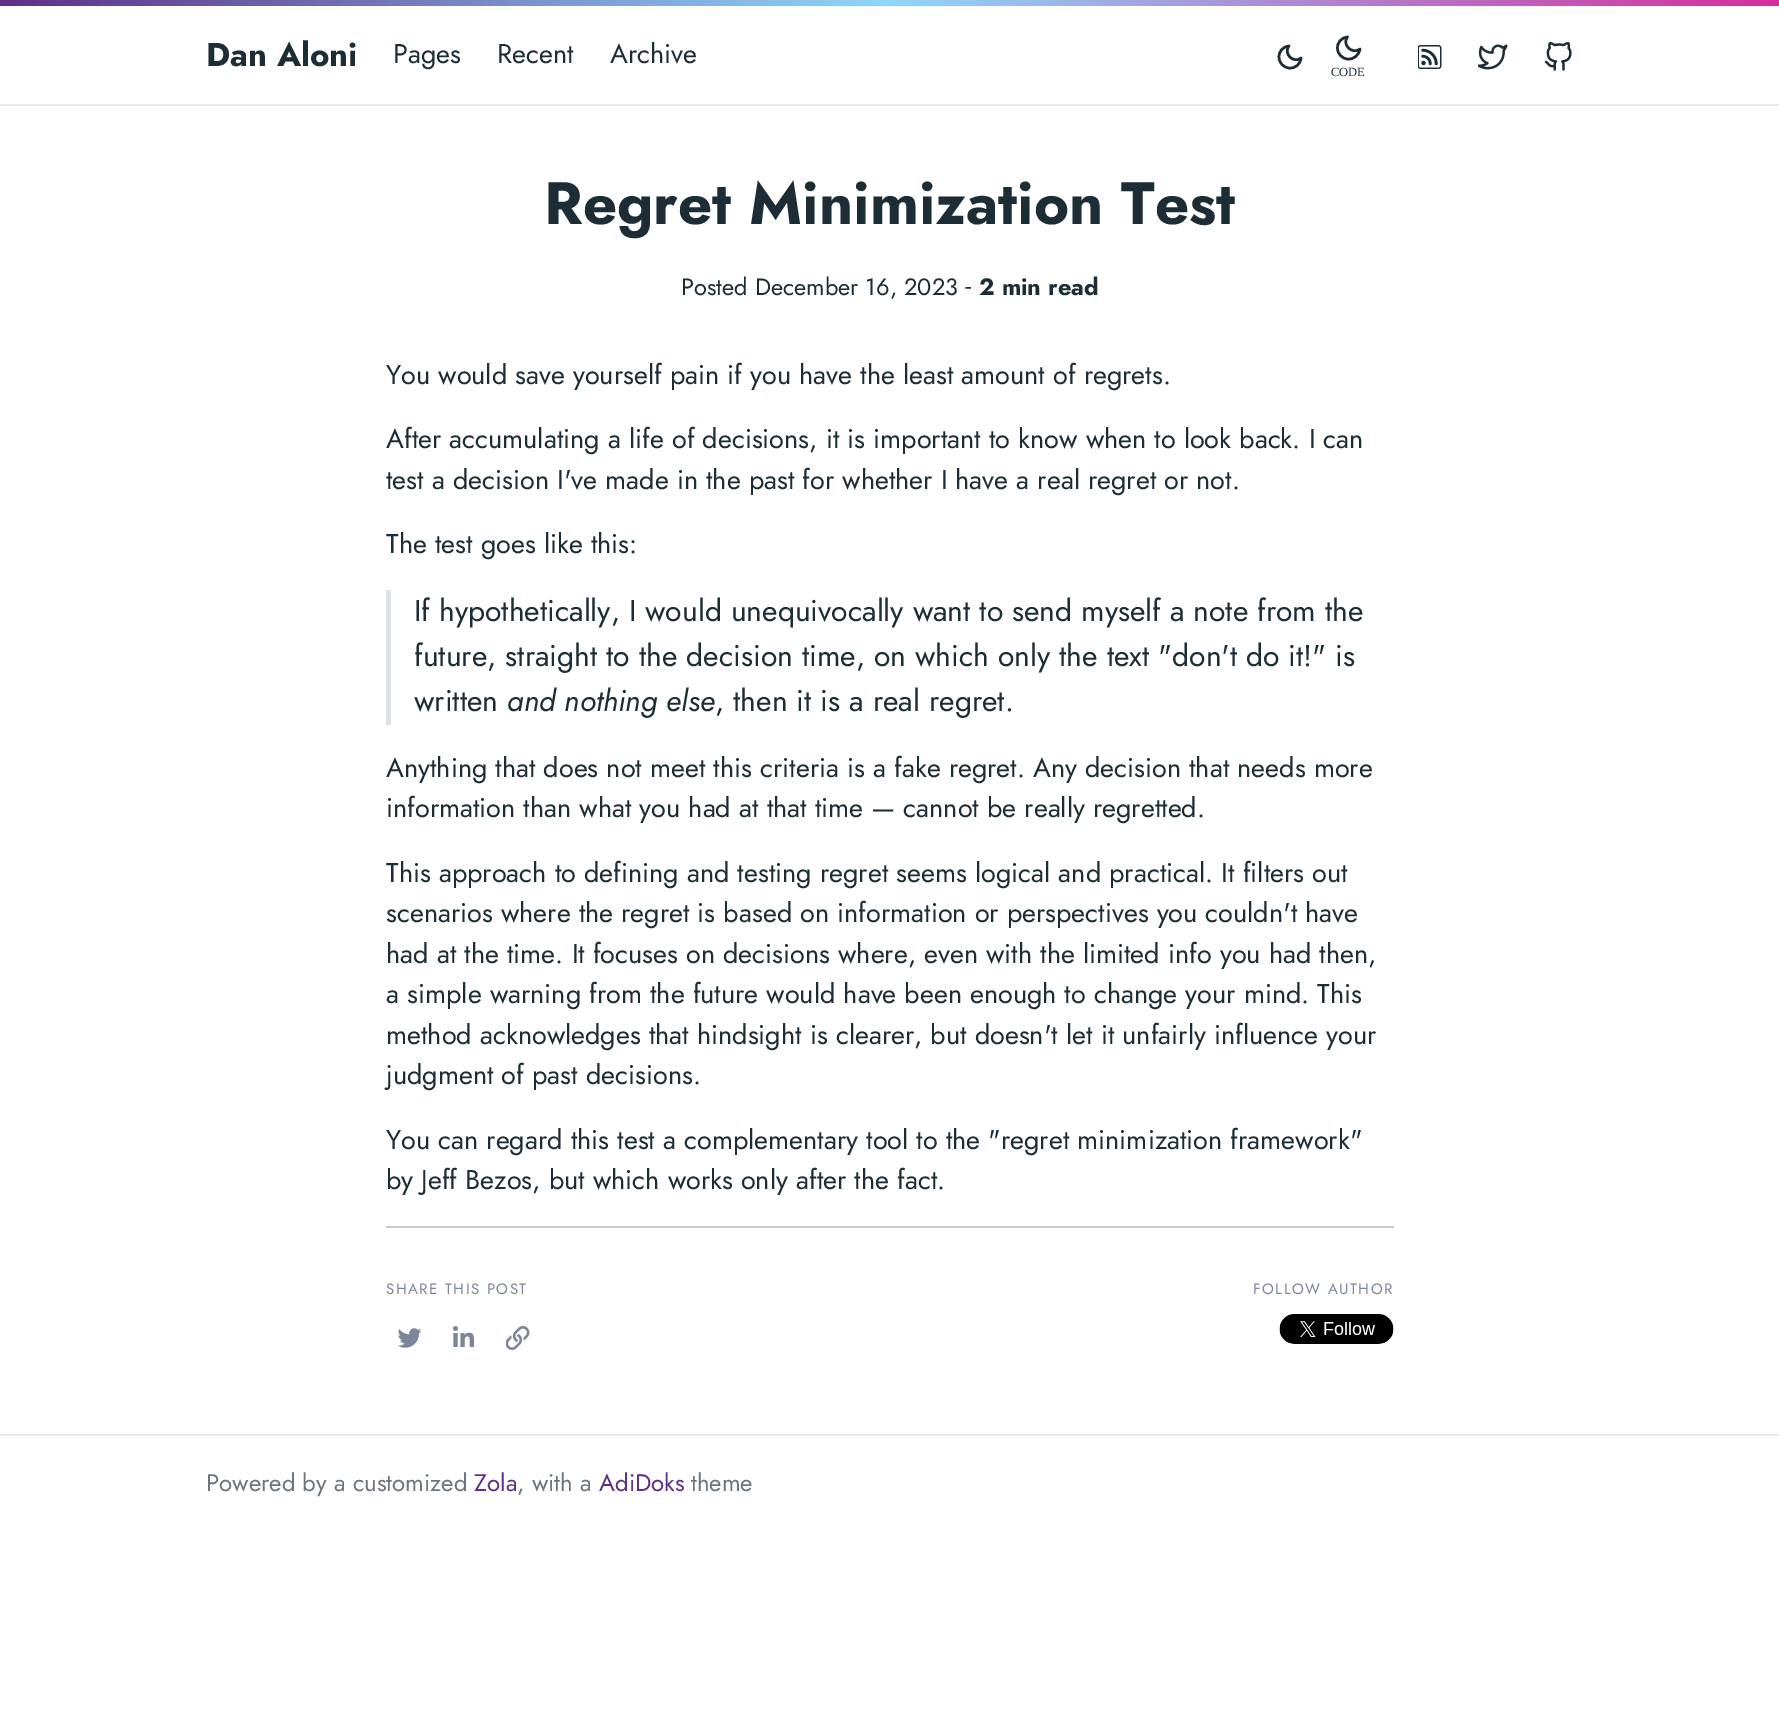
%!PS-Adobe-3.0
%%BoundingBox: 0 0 1779 1718
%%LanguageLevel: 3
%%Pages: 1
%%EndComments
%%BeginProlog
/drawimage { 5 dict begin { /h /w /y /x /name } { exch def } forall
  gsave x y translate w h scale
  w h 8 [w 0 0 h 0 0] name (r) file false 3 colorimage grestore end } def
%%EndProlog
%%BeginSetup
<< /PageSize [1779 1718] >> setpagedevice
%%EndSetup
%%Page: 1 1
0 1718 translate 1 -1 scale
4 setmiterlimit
1 setgray
0 0 1779 1718 rectfill
(images/1.raw) 0 0 1779 6 drawimage
0.914 0.925 0.937 setrgbcolor
0 104 1779 2 rectfill
0.114 0.176 0.208 setrgbcolor
2.5 setlinewidth
1 setlinecap
1 setlinejoin
newpath 1301 58 moveto 1300.5 64 1295.5 68.5 1289.5 68 curveto 1284 68 1279 63 1279 57.5 curveto 1278.5 51.5 1283 46.5 1289 46 curveto 1283 53.5 1293.5 64 1301 58 curveto closepath stroke
(images/2.raw) 1418 45 24 24 drawimage
(images/3.raw) 1478 44 30 26 drawimage
(images/4.raw) 1544 42 28 29 drawimage
newpath 1360 49 moveto 1359 55 1354 59.5 1348 59 curveto 1342.5 59 1337.5 54 1337.5 48.5 curveto 1337 42.5 1341.5 37.5 1347.5 37 curveto 1341.5 44.5 1352 55 1360 49 curveto closepath stroke
0.871 0.886 0.902 setrgbcolor
386 590 5 135 rectfill
0.78 0.796 0.804 setrgbcolor
386 1226 1008 2 rectfill
(images/5.raw) 398 1328 24 20 drawimage
(images/6.raw) 453 1326 21 21 drawimage
(images/7.raw) 506 1326 24 24 drawimage
(images/8.raw) 1279 1314 115 30 drawimage
0.914 0.925 0.937 setrgbcolor
0 1434 1779 2 rectfill
/Jost-Bold [33 0 0 -33 0 0] selectfont
0.114 0.176 0.208 setrgbcolor
206 66 moveto (Dan Aloni) show
/Jost-Regular [27 0 0 -27 0 0] selectfont
393 63 moveto (Pages) show
497 63 moveto (Recent) show
610 63 moveto (Archive) show
/LiberationSerif-Regular [12.5 0 0 -12.5 0 0] selectfont
1331 76 moveto (CODE) show
/Jost-Bold [59.75 0 0 -59.75 0 0] selectfont
544 224 moveto (Regret Minimization Test) show
/Jost-Regular [23.6 0 0 -23.6 0 0] selectfont
681 295 moveto (Posted December 16, 2023) show
/Roboto-Regular [23.6 0 0 -23.6 0 0] selectfont
965 295 moveto (‐) show
/Jost-Bold [23.6 0 0 -23.6 0 0] selectfont
979 295 moveto (2 min read) show
/Jost-Regular [27 0 0 -27 0 0] selectfont
386 384 moveto (You would save yourself pain if you have the least amount of regrets.) show
386 448 moveto (After accumulating a life of decisions, it is important to know when to look back. I can) show
386 489 moveto (test a decision I've made in the past for whether I have a real regret or not.) show
386 553 moveto (The test goes like this:) show
/Jost-Regular [30 0 0 -30 0 0] selectfont
414 621 moveto (If hypothetically, I would unequivocally want to send myself a note from the) show
414 666 moveto (future, straight to the decision time, on which only the text "don't do it!" is) show
414 711 moveto (written) show
/Jost-Italic [30 0 0 -30 0 0] selectfont
507 711 moveto (and nothing else) show
/Jost-Regular [30 0 0 -30 0 0] selectfont
715 711 moveto (, then it is a real regret.) show
/Jost-Regular [27 0 0 -27 0 0] selectfont
386 777 moveto (Anything that does not meet this criteria is a fake regret. Any decision that needs more) show
386 817 moveto (information than what you had at that time — cannot be really regretted.) show
386 882 moveto (This approach to defining and testing regret seems logical and practical. It filters out) show
386 922 moveto (scenarios where the regret is based on information or perspectives you couldn't have) show
386 963 moveto (had at the time. It focuses on decisions where, even with the limited info you had then,) show
386 1003 moveto (a simple warning from the future would have been enough to change your mind. This) show
386 1044 moveto (method acknowledges that hindsight is clearer, but doesn't let it unfairly influence your) show
386 1084 moveto (judgment of past decisions.) show
386 1149 moveto (You can regard this test a complementary tool to the "regret minimization framework") show
386 1189 moveto (by Jeff Bezos, but which works only after the fact.) show
/Jost-Regular [15 0 0 -15 0 0] selectfont
0.49 0.525 0.6 setrgbcolor
386 1294 moveto 1.5 0 (SHARE THIS POST) ashow
1253 1294 moveto 1.5 0 (FOLLOW AUTHOR) ashow
/Jost-Regular [24 0 0 -24 0 0] selectfont
0.424 0.459 0.49 setrgbcolor
206 1491 moveto (Powered by a customized) show
0.365 0.184 0.525 setrgbcolor
474 1491 moveto (Zola) show
0.424 0.459 0.49 setrgbcolor
517 1491 moveto (, with a) show
0.365 0.184 0.525 setrgbcolor
599 1491 moveto (AdiDoks) show
0.424 0.459 0.49 setrgbcolor
691 1491 moveto (theme) show
showpage
%%EOF
